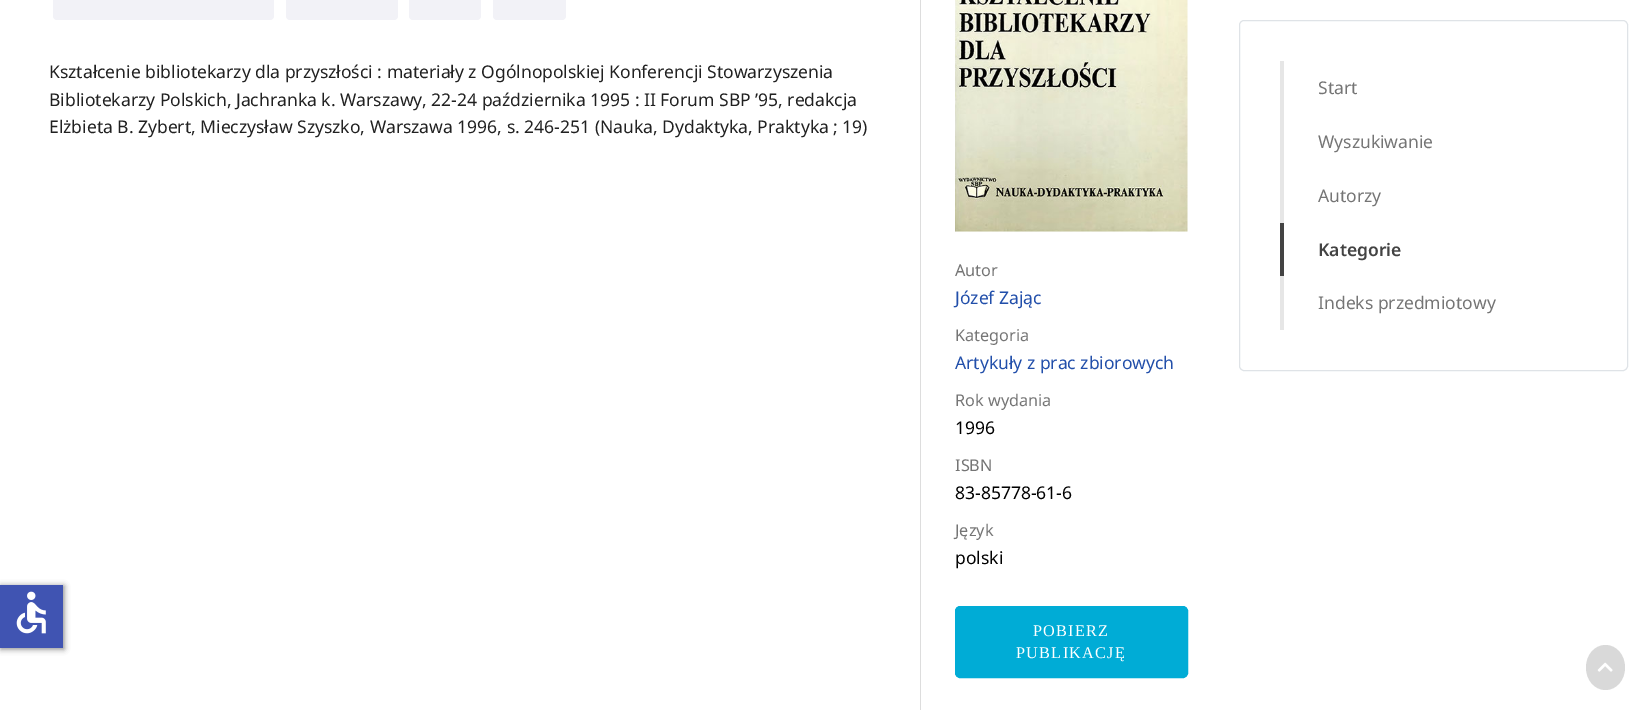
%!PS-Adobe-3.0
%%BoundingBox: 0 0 1644 710
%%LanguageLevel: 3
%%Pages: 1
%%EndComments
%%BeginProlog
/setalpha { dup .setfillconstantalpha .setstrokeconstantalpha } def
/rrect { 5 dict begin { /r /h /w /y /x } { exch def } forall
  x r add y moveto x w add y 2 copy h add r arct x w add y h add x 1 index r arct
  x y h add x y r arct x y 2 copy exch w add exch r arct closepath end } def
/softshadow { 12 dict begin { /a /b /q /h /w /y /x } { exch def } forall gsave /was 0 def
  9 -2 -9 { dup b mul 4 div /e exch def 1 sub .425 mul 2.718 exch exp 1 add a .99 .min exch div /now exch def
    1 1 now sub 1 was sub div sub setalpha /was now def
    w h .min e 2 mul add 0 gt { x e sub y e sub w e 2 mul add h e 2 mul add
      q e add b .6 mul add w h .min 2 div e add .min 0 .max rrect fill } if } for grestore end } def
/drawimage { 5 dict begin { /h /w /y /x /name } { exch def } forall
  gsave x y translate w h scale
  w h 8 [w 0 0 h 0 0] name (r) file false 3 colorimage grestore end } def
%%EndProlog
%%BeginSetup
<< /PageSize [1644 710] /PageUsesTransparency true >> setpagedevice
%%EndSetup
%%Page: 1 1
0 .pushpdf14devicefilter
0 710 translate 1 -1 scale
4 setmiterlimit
1 setgray
0 0 1644 710 rectfill
0 setgray
1 586 63 63 0 3 0.5 softshadow
0.251 0.329 0.698 setrgbcolor
0 585 63 63 rectfill
(images/1.raw) 16 591 30 43 drawimage
0.949 0.949 0.969 setrgbcolor
53 -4 221 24 4 rrect fill
286 -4 112 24 4 rrect fill
409 -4 72 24 4 rrect fill
493 -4 73 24 4 rrect fill
0.867 setgray
920 0 1 710 rectfill
(images/2.raw) 955 0 233 232 drawimage
0 0.675 0.839 setrgbcolor
955.5 606.5 232 71 4.5 rrect gsave fill grestore
stroke
0.875 0.89 0.906 setrgbcolor
1239.5 20.5 388 350 4.5 rrect stroke
0.902 setgray
1280 61 4 162 rectfill
0.263 setgray
1280 223 4 53 rectfill
0.902 setgray
1280 276 4 54 rectfill
0.851 setgray
newpath 1605.5 645 moveto 1616.5 645 1625 655 1625 667.5 curveto 1625 680 1616.5 690 1605.5 690 curveto 1594.5 690 1586 680 1586 667.5 curveto 1586 655 1594.5 645 1605.5 645 curveto closepath fill
(images/3.raw) 1597 662 16 10 drawimage
/NotoSans-Regular [17.5 0 0 -17.5 0 0] selectfont
0.129 setgray
49 78 moveto (Kształcenie bibliotekarzy dla przyszłości : materiały z Ogólnopolskiej Konferencji Stowarzyszenia) show
49 106 moveto (Bibliotekarzy Polskich, Jachranka k. Warszawy, 22-24 października 1995 : II Forum SBP ’95, redakcja) show
49 133 moveto (Elżbieta B. Zybert, Mieczysław Szyszko, Warszawa 1996, s. 246-251 \(Nauka, Dydaktyka, Praktyka ; 19\)) show
/NotoSans-Regular [16.25 0 0 -16.25 0 0] selectfont
0.459 setgray
955 276 moveto (Autor) show
/NotoSans-Regular [17.5 0 0 -17.5 0 0] selectfont
0.133 0.31 0.667 setrgbcolor
955 304 moveto (Józef Zając) show
/NotoSans-Regular [16.25 0 0 -16.25 0 0] selectfont
0.459 setgray
955 341 moveto (Kategoria) show
/NotoSans-Regular [17.5 0 0 -17.5 0 0] selectfont
0.133 0.31 0.667 setrgbcolor
955 369 moveto (Artykuły z prac zbiorowych) show
/NotoSans-Regular [16.25 0 0 -16.25 0 0] selectfont
0.459 setgray
955 406 moveto (Rok wydania) show
/NotoSans-Regular [17.5 0 0 -17.5 0 0] selectfont
0 setgray
955 434 moveto (1996) show
/NotoSans-Regular [16.25 0 0 -16.25 0 0] selectfont
0.459 setgray
955 471 moveto (ISBN) show
/NotoSans-Regular [17.5 0 0 -17.5 0 0] selectfont
0 setgray
955 499 moveto (83-85778-61-6) show
/NotoSans-Regular [16.25 0 0 -16.25 0 0] selectfont
0.459 setgray
955 536 moveto (Język) show
/NotoSans-Regular [17.5 0 0 -17.5 0 0] selectfont
0 setgray
955 564 moveto (polski) show
/LiberationSerif-Regular [16.25 0 0 -16.25 0 0] selectfont
1 setgray
1033 636 moveto 1.25 0 (POBIERZ) ashow
1016 658 moveto 1.25 0 (PUBLIKACJĘ) ashow
/NotoSans-Regular [17.5 0 0 -17.5 0 0] selectfont
0.459 setgray
1318 94 moveto (Start) show
1318 148 moveto (Wyszukiwanie) show
1318 202 moveto (Autorzy) show
/NotoSans-SemiBold [17.5 0 0 -17.5 0 0] selectfont
0.263 setgray
1318 256 moveto (Kategorie) show
/NotoSans-Regular [17.5 0 0 -17.5 0 0] selectfont
0.459 setgray
1318 309 moveto (Indeks przedmiotowy) show
.poppdf14devicefilter showpage
%%EOF
